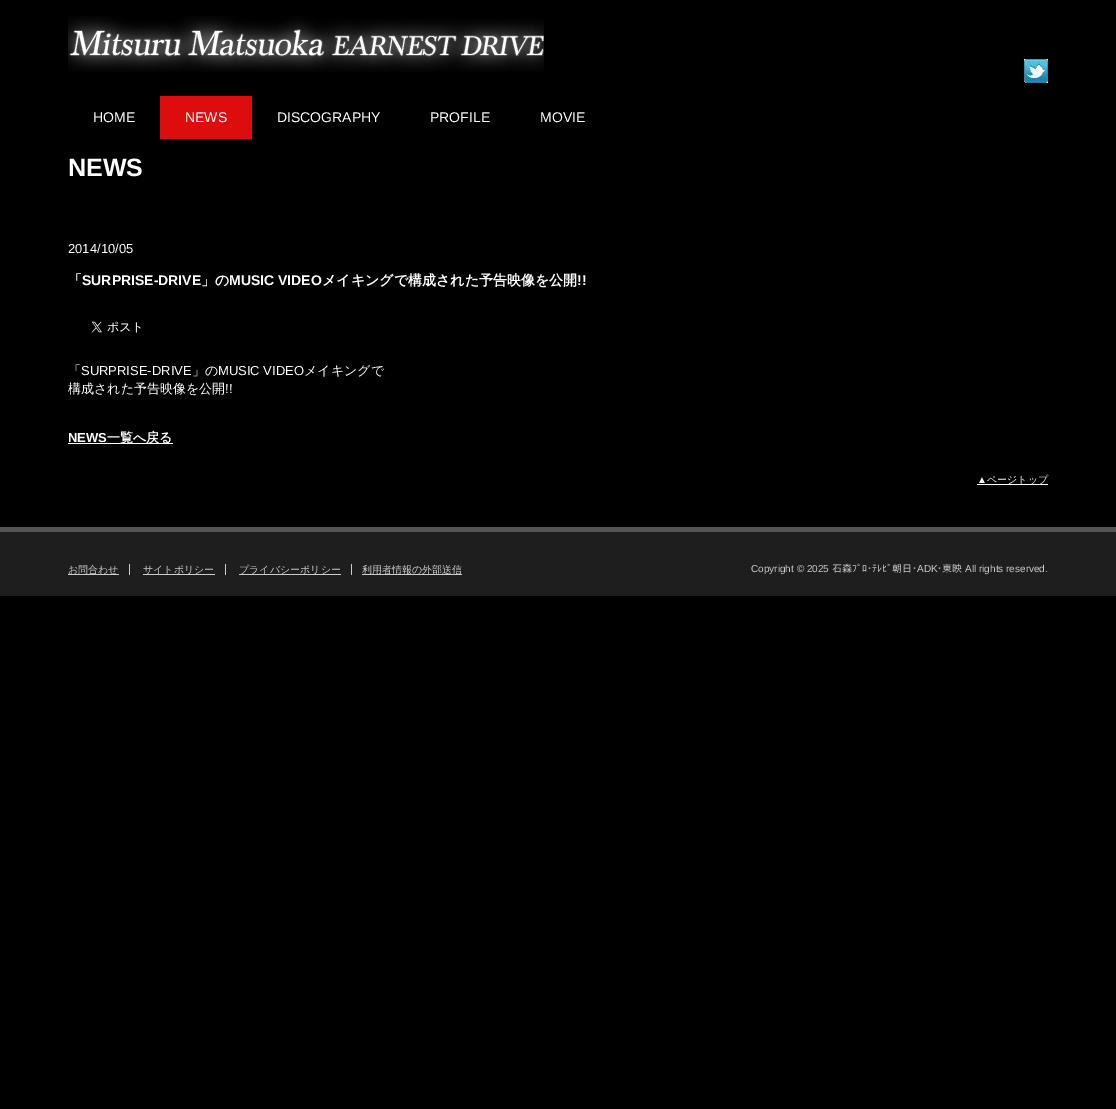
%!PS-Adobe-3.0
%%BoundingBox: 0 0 1116 1109
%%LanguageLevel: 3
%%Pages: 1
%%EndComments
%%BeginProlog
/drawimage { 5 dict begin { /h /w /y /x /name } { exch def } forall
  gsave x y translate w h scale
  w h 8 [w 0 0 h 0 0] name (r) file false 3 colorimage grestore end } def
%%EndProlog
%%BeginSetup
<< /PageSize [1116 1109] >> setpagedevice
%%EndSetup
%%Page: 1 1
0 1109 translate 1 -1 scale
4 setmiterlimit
0 setgray
0 0 1116 1109 rectfill
(images/1.raw) 68 16 476 56 drawimage
(images/2.raw) 1024 59 24 24 drawimage
0.859 0.051 0.051 setrgbcolor
160 96 92 43 rectfill
(images/3.raw) 91 321 50 12 drawimage
1 setgray
68 443 105 1 rectfill
977 484 71 1 rectfill
0.118 setgray
0 532 1116 64 rectfill
0.333 setgray
0 527 1116 5 rectfill
0.8 setgray
129 564 1 11 rectfill
68 574 51 1 rectfill
225 564 1 11 rectfill
143 574 72 1 rectfill
351 564 1 11 rectfill
239 574 102 1 rectfill
362 574 100 1 rectfill
/LiberationSans-Regular [14 0 0 -14 0 0] selectfont
1 setgray
93 122 moveto (HOME) show
185 122 moveto (NEWS) show
277 122 moveto (DISCOGRAPHY) show
430 122 moveto (PROFILE) show
540 122 moveto (MOVIE) show
/LiberationSans-Bold [25 0 0 -25 0 0] selectfont
68 176 moveto (NEWS) show
/LiberationSans-Regular [13 0 0 -13 0 0] selectfont
68 253 moveto (2014/10/05) show
/WenQuanYiZenHei-Bold [14 0 0 -14 0 0] selectfont
68 285 moveto (「) show
/LiberationSans-Bold [14 0 0 -14 0 0] selectfont
82 285 moveto (SURPRISE-DRIVE) show
/WenQuanYiZenHei-Bold [14 0 0 -14 0 0] selectfont
201 285 moveto (」の) show
/LiberationSans-Bold [14 0 0 -14 0 0] selectfont
229 285 moveto (MUSIC VIDEO) show
/WenQuanYiZenHei-Bold [14 0 0 -14 0 0] selectfont
322 285 moveto (メイキングで構成された予告映像を公開) show
/LiberationSans-Bold [14 0 0 -14 0 0] selectfont
577 285 moveto (!!) show
/WenQuanYiZenHei-Medium [13 0 0 -13 0 0] selectfont
68 375 moveto (「) show
/LiberationSans-Regular [13 0 0 -13 0 0] selectfont
81 375 moveto (SURPRISE-DRIVE) show
/WenQuanYiZenHei-Medium [13 0 0 -13 0 0] selectfont
192 375 moveto (」の) show
/LiberationSans-Regular [13 0 0 -13 0 0] selectfont
218 375 moveto (MUSIC VIDEO) show
/WenQuanYiZenHei-Medium [13 0 0 -13 0 0] selectfont
304 375 moveto (メイキングで) show
68 393 moveto (構成された予告映像を公開) show
/LiberationSans-Regular [13 0 0 -13 0 0] selectfont
225 393 moveto (!!) show
/LiberationSans-Bold [13 0 0 -13 0 0] selectfont
68 442 moveto (NEWS) show
/WenQuanYiZenHei-Bold [13 0 0 -13 0 0] selectfont
107 442 moveto (一覧へ戻る) show
/LiberationSans-Regular [10 0 0 -10 0 0] selectfont
977 483 moveto (▲) show
/WenQuanYiZenHei-Medium [10 0 0 -10 0 0] selectfont
987 483 moveto (ページトップ) show
0.8 setgray
68 573 moveto (お問合わせ) show
143 573 moveto (サイトポリシー) show
239 573 moveto (プライバシーポリシー) show
362 573 moveto (利用者情報の外部送信) show
/LiberationSans-Regular [10 0 0 -10 0 0] selectfont
751 572 moveto (Copyright © 2025) show
/IPAPGothic-Regular [10 0 0 -10 0 0] selectfont
832 572 moveto (石森ﾌﾟﾛ･ﾃﾚﾋﾞ朝日･) show
/LiberationSans-Regular [10 0 0 -10 0 0] selectfont
917 572 moveto (ADK) show
/IPAPGothic-Regular [10 0 0 -10 0 0] selectfont
937 572 moveto (･東映) show
/LiberationSans-Regular [10 0 0 -10 0 0] selectfont
965 572 moveto (All rights reserved.) show
showpage
%%EOF
